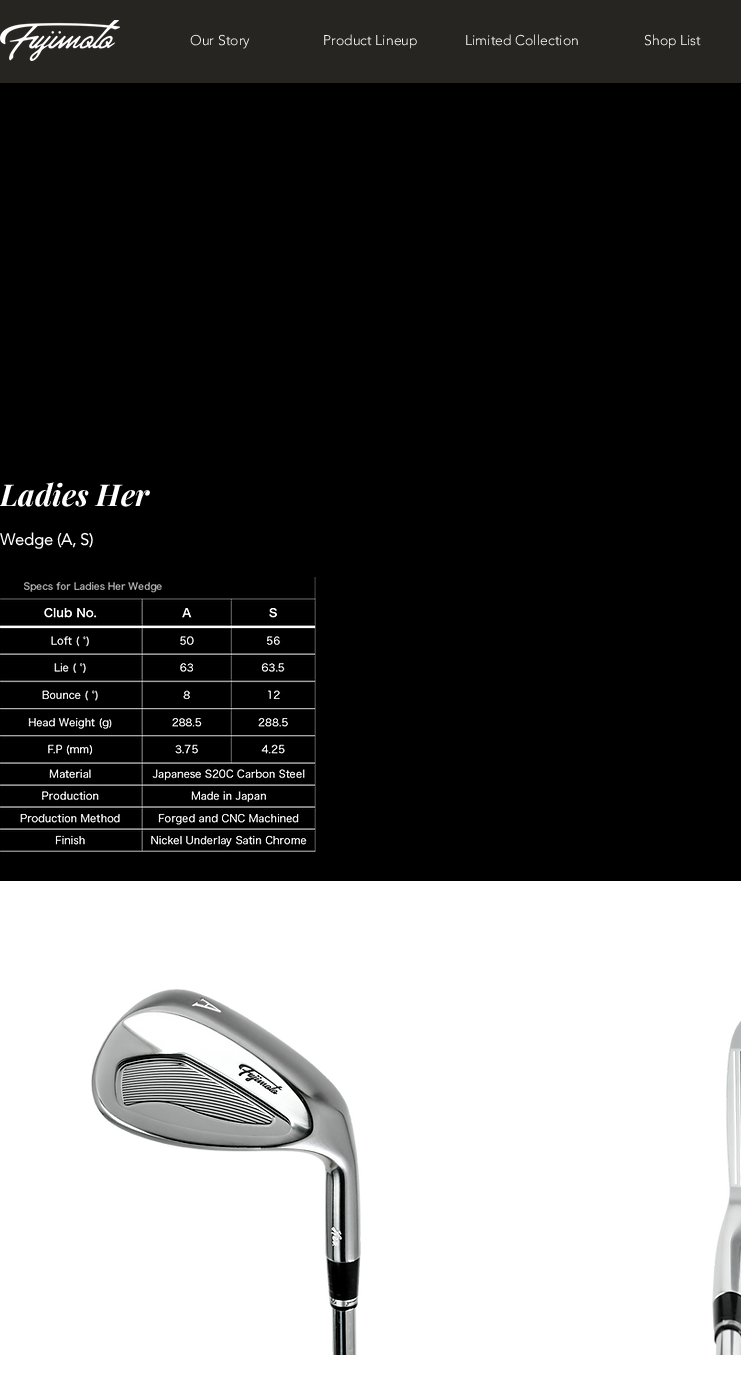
%!PS-Adobe-3.0
%%BoundingBox: 0 0 741 1376
%%LanguageLevel: 3
%%Pages: 1
%%EndComments
%%BeginProlog
/drawimage { 5 dict begin { /h /w /y /x /name } { exch def } forall
  gsave x y translate w h scale
  w h 8 [w 0 0 h 0 0] name (r) file false 3 colorimage grestore end } def
%%EndProlog
%%BeginSetup
<< /PageSize [741 1376] >> setpagedevice
%%EndSetup
%%Page: 1 1
0 1376 translate 1 -1 scale
4 setmiterlimit
1 setgray
0 0 741 1376 rectfill
0.153 0.145 0.129 setrgbcolor
0 0 741 83 rectfill
(images/1.raw) 0 20 120 41 drawimage
0 setgray
0 83 741 798 rectfill
(images/2.raw) 0 577 316 275 drawimage
(images/3.raw) 91 989 270 366 drawimage
(images/4.raw) 712 1021 29 334 drawimage
/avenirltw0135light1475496-Light [14 0 0 -14 0 0] selectfont
1 setgray
190 45 moveto (Our Story) show
323 45 moveto (Product Lineup) show
465 45 moveto (Limited Collection) show
644 45 moveto (Shop List) show
/PlayfairDisplay-BoldItalic [30 0 0 -30 0 0] selectfont
0 506 moveto (Ladies Her) show
/avenirltw0135light1475496-Bold [16 0 0 -16 0 0] selectfont
0 545 moveto (Wedge \(A, S\)) show
showpage
%%EOF
